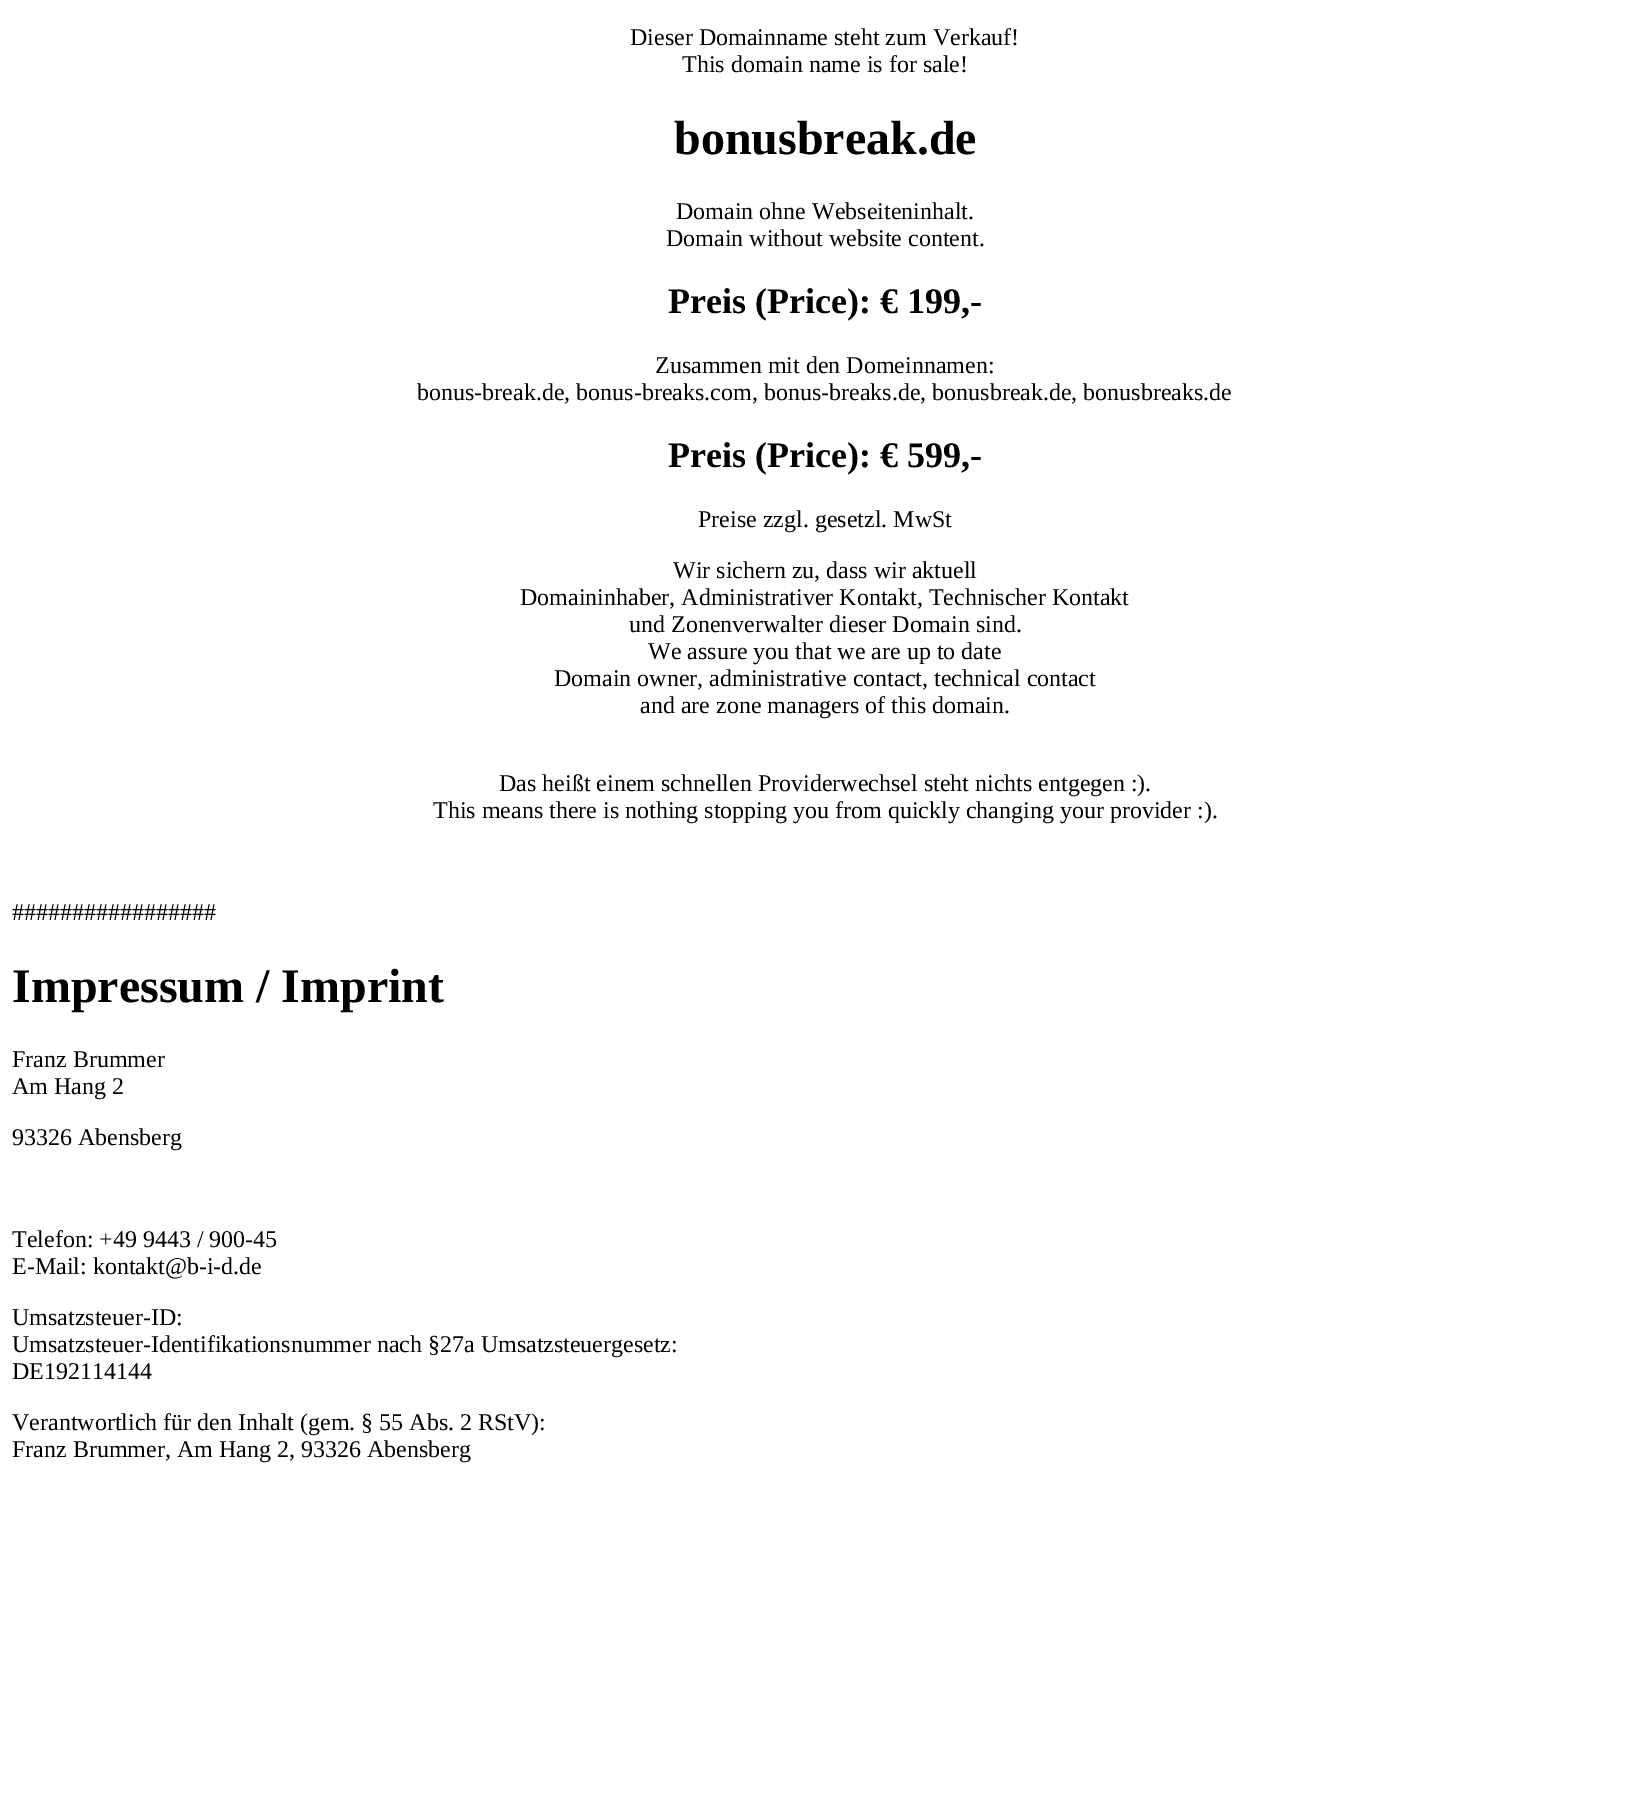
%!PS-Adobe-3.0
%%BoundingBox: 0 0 1649 1803
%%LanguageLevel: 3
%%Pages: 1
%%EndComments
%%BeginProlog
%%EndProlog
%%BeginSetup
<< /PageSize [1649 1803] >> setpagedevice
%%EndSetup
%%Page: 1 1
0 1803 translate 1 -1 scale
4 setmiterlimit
1 setgray
0 0 1649 1803 rectfill
/LiberationSerif-Regular [24 0 0 -24 0 0] selectfont
0 setgray
630 45 moveto (Dieser Domainname steht zum Verkauf!) show
682 72 moveto (This domain name is for sale!) show
/LiberationSerif-Bold [48 0 0 -48 0 0] selectfont
674 154 moveto (bonusbreak.de) show
/LiberationSerif-Regular [24 0 0 -24 0 0] selectfont
676 219 moveto (Domain ohne Webseiteninhalt.) show
666 246 moveto (Domain without website content.) show
/LiberationSerif-Bold [36 0 0 -36 0 0] selectfont
668 313 moveto (Preis \(Price\): € 199,-) show
/LiberationSerif-Regular [24 0 0 -24 0 0] selectfont
655 373 moveto (Zusammen mit den Domeinnamen:) show
417 400 moveto (bonus-break.de, bonus-breaks.com, bonus-breaks.de, bonusbreak.de, bonusbreaks.de) show
/LiberationSerif-Bold [36 0 0 -36 0 0] selectfont
668 467 moveto (Preis \(Price\): € 599,-) show
/LiberationSerif-Regular [24 0 0 -24 0 0] selectfont
698 527 moveto (Preise zzgl. gesetzl. MwSt) show
673 578 moveto (Wir sichern zu, dass wir aktuell) show
520 605 moveto (Domaininhaber, Administrativer Kontakt, Technischer Kontakt) show
629 632 moveto (und Zonenverwalter dieser Domain sind.) show
648 659 moveto (We assure you that we are up to date) show
554 686 moveto (Domain owner, administrative contact, technical contact) show
640 713 moveto (and are zone managers of this domain.) show
499 791 moveto (Das heißt einem schnellen Providerwechsel steht nichts entgegen :\).) show
433 818 moveto (This means there is nothing stopping you from quickly changing your provider :\).) show
12 920 moveto (#################) show
/LiberationSerif-Bold [48 0 0 -48 0 0] selectfont
12 1002 moveto (Impressum / Imprint) show
/LiberationSerif-Regular [24 0 0 -24 0 0] selectfont
12 1067 moveto (Franz Brummer) show
12 1094 moveto (Am Hang 2) show
12 1145 moveto (93326 Abensberg) show
12 1247 moveto (Telefon: +49 9443 / 900-45) show
12 1274 moveto (E-Mail: kontakt@b-i-d.de) show
12 1325 moveto (Umsatzsteuer-ID:) show
12 1352 moveto (Umsatzsteuer-Identifikationsnummer nach §27a Umsatzsteuergesetz:) show
12 1379 moveto (DE192114144) show
12 1430 moveto (Verantwortlich für den Inhalt \(gem. § 55 Abs. 2 RStV\):) show
12 1457 moveto (Franz Brummer, Am Hang 2, 93326 Abensberg) show
showpage
%%EOF
